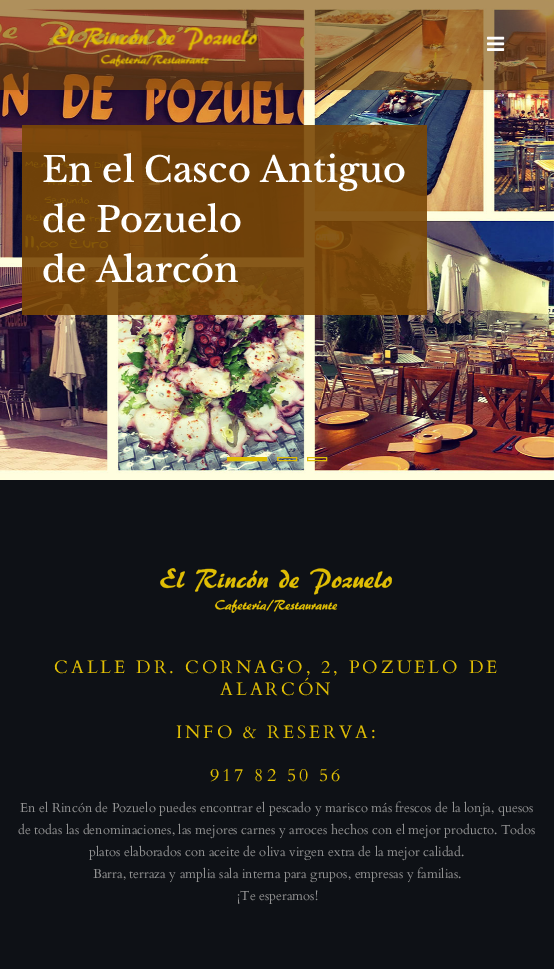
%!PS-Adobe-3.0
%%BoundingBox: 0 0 554 969
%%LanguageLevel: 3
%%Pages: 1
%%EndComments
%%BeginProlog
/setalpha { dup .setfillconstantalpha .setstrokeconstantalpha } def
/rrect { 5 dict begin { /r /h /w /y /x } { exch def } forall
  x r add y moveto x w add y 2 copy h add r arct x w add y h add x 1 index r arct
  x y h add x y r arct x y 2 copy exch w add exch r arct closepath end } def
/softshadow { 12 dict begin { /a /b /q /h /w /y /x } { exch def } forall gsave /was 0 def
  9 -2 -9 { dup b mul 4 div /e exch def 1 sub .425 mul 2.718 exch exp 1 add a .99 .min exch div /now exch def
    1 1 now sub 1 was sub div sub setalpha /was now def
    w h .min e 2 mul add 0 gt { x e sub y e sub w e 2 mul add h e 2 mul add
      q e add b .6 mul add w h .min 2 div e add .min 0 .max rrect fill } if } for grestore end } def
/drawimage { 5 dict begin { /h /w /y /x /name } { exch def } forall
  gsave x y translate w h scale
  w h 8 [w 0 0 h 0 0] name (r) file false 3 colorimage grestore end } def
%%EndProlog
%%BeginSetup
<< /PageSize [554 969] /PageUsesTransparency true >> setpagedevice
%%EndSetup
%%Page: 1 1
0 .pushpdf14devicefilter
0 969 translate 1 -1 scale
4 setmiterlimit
1 setgray
0 0 554 969 rectfill
(images/3.raw) 0 0 554 480 drawimage
gsave
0 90 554 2 rectclip
0 setgray
0 0 554 90 0 2 0.1 softshadow
grestore
0.6 setalpha
0.478 0.278 0.02 setrgbcolor
0 0 554 90 rectfill
1 setalpha
(images/1.raw) 52 27 205 41 drawimage
(images/2.raw) 487 36 18 15 drawimage
0.9 setalpha
22 125 405 190 rectfill
1 setalpha
0.878 0.745 0.016 setrgbcolor
227.5 457.5 39 3 rectstroke
228 458 38 2 rectfill
277.5 457.5 19 3 rectstroke
307.5 457.5 19 3 rectstroke
0.055 0.067 0.086 setrgbcolor
0 480 554 489 rectfill
(images/4.raw) 160 568 232 45 drawimage
/LibreBaskerville-Medium [35 0 0 -35 0 0] selectfont
1 setgray
42 182 moveto (En el Casco Antiguo) show
42 232 moveto (de Pozuelo) show
42 282 moveto (de Alarcón) show
/Cardo-Regular [18 0 0 -18 0 0] selectfont
0.878 0.745 0.016 setrgbcolor
54 673 moveto 3 0 (CALLE DR. CORNAGO, 2, POZUELO DE) ashow
220 695 moveto 3 0 (ALARCÓN) ashow
176 738 moveto 3 0 (INFO & RESERVA:) ashow
210 781 moveto 3 0 (917 82 50 56) ashow
/Cardo-Regular [13 0 0 -13 0 0] selectfont
0.576 setgray
20 812 moveto (En el Rincón de Pozuelo puedes encontrar el pescado y marisco más frescos de la lonja, quesos) show
18 834 moveto (de todas las denominaciones, las mejores carnes y arroces hechos con el mejor producto. Todos) show
89 856 moveto (platos elaborados con aceite de oliva virgen extra de la mejor calidad.) show
93 878 moveto (Barra, terraza y amplia sala interna para grupos, empresas y familias.) show
237 900 moveto (¡Te esperamos!) show
.poppdf14devicefilter showpage
%%EOF
